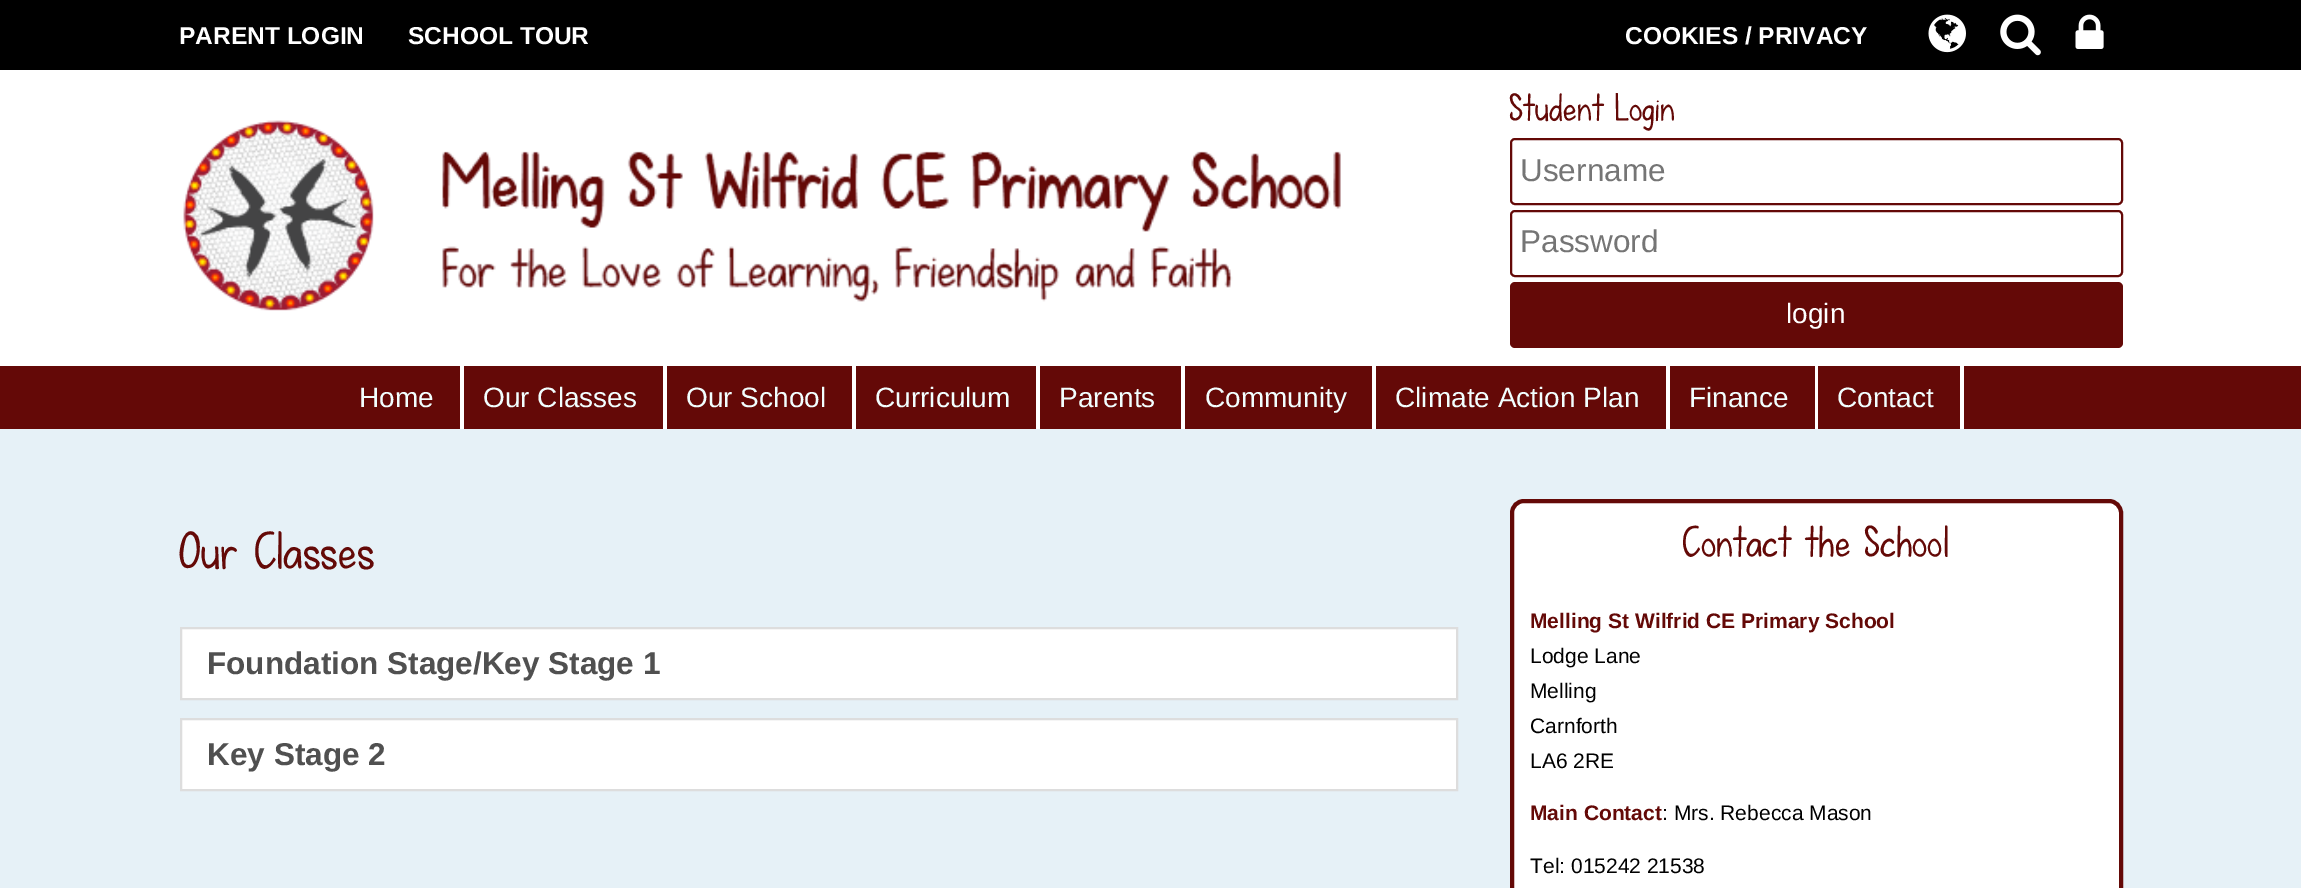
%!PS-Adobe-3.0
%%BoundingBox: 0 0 2301 888
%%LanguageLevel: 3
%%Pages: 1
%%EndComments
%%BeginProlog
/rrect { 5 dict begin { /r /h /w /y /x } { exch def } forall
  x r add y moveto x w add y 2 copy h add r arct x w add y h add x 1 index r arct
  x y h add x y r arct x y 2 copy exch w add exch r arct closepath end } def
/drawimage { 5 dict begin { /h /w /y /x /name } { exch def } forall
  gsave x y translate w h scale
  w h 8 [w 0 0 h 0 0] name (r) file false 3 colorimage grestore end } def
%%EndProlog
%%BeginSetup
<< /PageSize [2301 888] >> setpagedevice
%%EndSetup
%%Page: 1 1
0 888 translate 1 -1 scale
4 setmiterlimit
0 setgray
0 0 2301 888 rectfill
(images/1.raw) 1928 14 38 39 drawimage
(images/2.raw) 2000 14 41 42 drawimage
(images/3.raw) 2075 14 29 35 drawimage
1 setgray
0 70 2301 296 rectfill
(images/4.raw) 183 120 1158 191 drawimage
0.392 0.035 0.027 setrgbcolor
2 setlinewidth
1511 139 611 65 4 rrect stroke
1511 211 611 65 4 rrect stroke
1510 282 613 66 5 rrect fill
0 366 2301 63 rectfill
1 setgray
460 366 4 63 rectfill
663 366 4 63 rectfill
852 366 4 63 rectfill
1036 366 4 63 rectfill
1181 366 4 63 rectfill
1372 366 4 63 rectfill
1666 366 4 63 rectfill
1815 366 3 63 rectfill
1960 366 4 63 rectfill
0.902 0.945 0.969 setrgbcolor
0 429 2301 459 rectfill
1 setgray
newpath 181 628 moveto 1457 628 lineto 1457 699 lineto 181 699 lineto closepath gsave fill grestore
0.867 setgray
stroke
1 setgray
newpath 181 719 moveto 1457 719 lineto 1457 790 lineto 181 790 lineto closepath gsave fill grestore
0.867 setgray
stroke
1 setgray
1512 501 609 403 12 rrect gsave fill grestore
0.392 0.035 0.027 setrgbcolor
4 setlinewidth
stroke
/LiberationSans-Bold [24.5 0 0 -24.5 0 0] selectfont
1 setgray
179 44 moveto (PARENT LOGIN) show
408 44 moveto (SCHOOL TOUR) show
1625 44 moveto (COOKIES / PRIVACY) show
/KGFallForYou-Regular [38.5 0 0 -38.5 0 0] selectfont
0.392 0.035 0.027 setrgbcolor
1509 121 moveto (Student Login) show
/LiberationSans-Regular [31.5 0 0 -31.5 0 0] selectfont
0.459 setgray
1520 181 moveto (Username) show
1520 252 moveto (Password) show
/LiberationSans-Regular [28 0 0 -28 0 0] selectfont
1 setgray
1786 323 moveto (login) show
0.949 1 1 setrgbcolor
359 407 moveto (Home) show
483 407 moveto (Our Classes) show
686 407 moveto (Our School) show
875 407 moveto (Curriculum) show
1059 407 moveto (Parents) show
1205 407 moveto (Community) show
1395 407 moveto (Climate Action Plan) show
1689 407 moveto (Finance) show
1837 407 moveto (Contact) show
/KGFallForYou-Regular [52.5 0 0 -52.5 0 0] selectfont
0.392 0.035 0.027 setrgbcolor
179 569 moveto (Our Classes) show
/LiberationSans-Bold [31.5 0 0 -31.5 0 0] selectfont
0.314 setgray
207 674 moveto (Foundation Stage/Key Stage 1) show
207 765 moveto (Key Stage 2) show
/KGFallForYou-Regular [43.75 0 0 -43.75 0 0] selectfont
0.392 0.035 0.027 setrgbcolor
1682 557 moveto (Contact the School) show
/LiberationSans-Bold [21 0 0 -21 0 0] selectfont
1530 628 moveto (Melling St Wilfrid CE Primary School) show
/LiberationSans-Regular [21 0 0 -21 0 0] selectfont
0 setgray
1530 663 moveto (Lodge Lane) show
1530 698 moveto (Melling) show
1530 733 moveto (Carnforth) show
1530 768 moveto (LA6 2RE) show
/LiberationSans-Bold [21 0 0 -21 0 0] selectfont
0.392 0.035 0.027 setrgbcolor
1530 820 moveto (Main Contact) show
/LiberationSans-Regular [21 0 0 -21 0 0] selectfont
0 setgray
1662 820 moveto (: Mrs. Rebecca Mason) show
1530 873 moveto (Tel: 015242 21538) show
showpage
%%EOF
